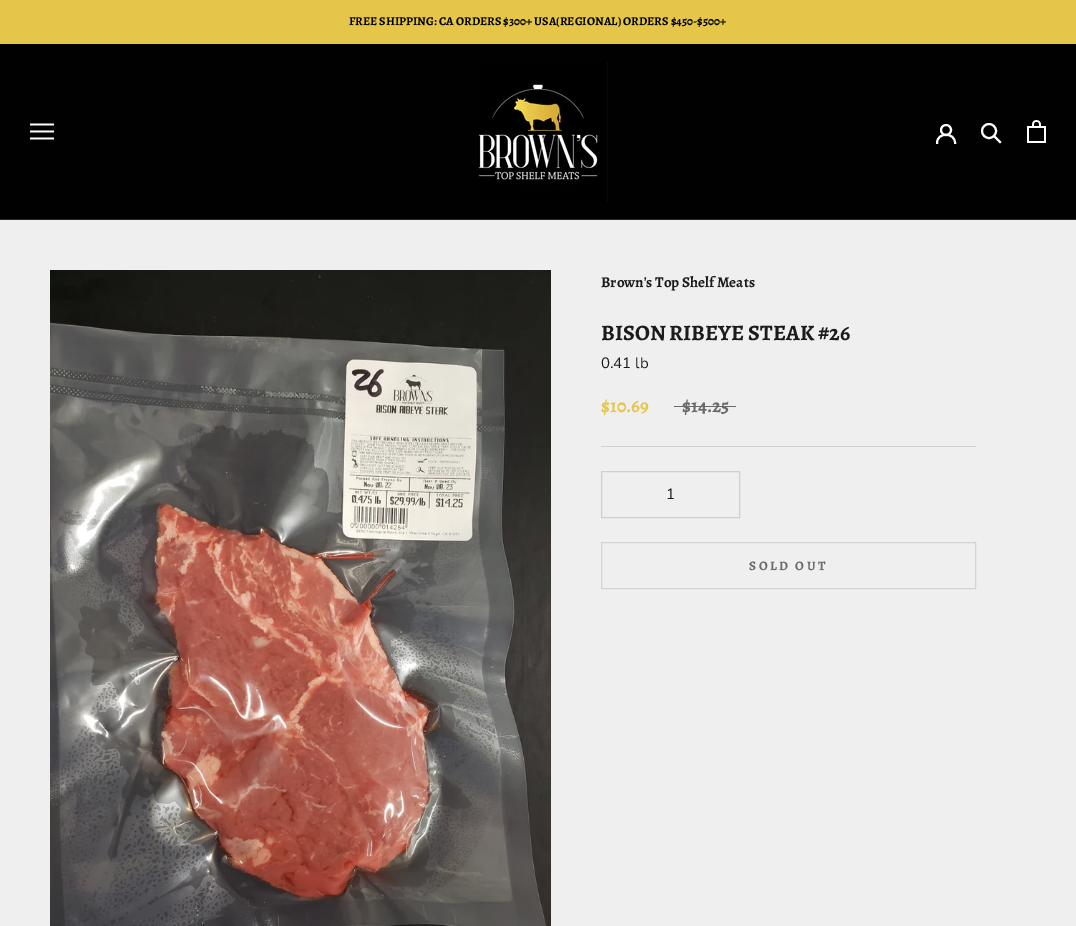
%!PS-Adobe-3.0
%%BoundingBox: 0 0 1076 926
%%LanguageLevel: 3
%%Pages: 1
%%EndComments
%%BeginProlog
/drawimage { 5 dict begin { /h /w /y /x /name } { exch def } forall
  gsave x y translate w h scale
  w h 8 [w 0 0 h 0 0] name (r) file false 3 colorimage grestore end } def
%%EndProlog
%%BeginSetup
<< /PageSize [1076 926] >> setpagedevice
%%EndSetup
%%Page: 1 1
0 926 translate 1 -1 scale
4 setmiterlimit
0.937 setgray
0 0 1076 926 rectfill
0.902 0.776 0.286 setrgbcolor
0 0 1076 44 rectfill
0.004 setgray
0 44 1076 175 rectfill
0.153 setgray
0 219 1076 1 rectfill
(images/1.raw) 30 123 24 17 drawimage
(images/2.raw) 478 62 130 140 drawimage
1 setgray
2 setlinewidth
2 setlinecap
newpath 937 143 moveto 937 132 955 132 955 143 curveto stroke
0 setlinecap
newpath 946 130 5 0 360 arc closepath stroke
2 setlinecap
newpath 1000 142 moveto 994.5 136.5 lineto stroke
0 setlinecap
newpath 989 131 7 0 360 arc closepath stroke
(images/3.raw) 1027 120 19 23 drawimage
(images/4.raw) 50 270 501 656 drawimage
0.812 setgray
601 446 375 1 rectfill
0.416 setgray
674 406 62 1 rectfill
0.812 setgray
1 setlinewidth
601.5 471.5 138 46 rectstroke
0.831 setgray
601.5 542.5 374 46 rectstroke
/Alegreya-Bold [12 0 0 -12 0 0] selectfont
0 setgray
349 25 moveto (FREE SHIPPING: CA ORDERS $300+ USA\(REGIONAL\) ORDERS $450-$500+) show
/Alegreya-Bold [15 0 0 -15 0 0] selectfont
0.11 0.106 0.106 setrgbcolor
601 287 moveto (Brown's Top Shelf Meats) show
/Alegreya-Bold [22 0 0 -22 0 0] selectfont
601 340 moveto (BISON RIBEYE STEAK #26) show
/NunitoSans-Regular [15 0 0 -15 0 0] selectfont
601 368 moveto (0.41 lb) show
/Alegreya-Bold [19 0 0 -19 0 0] selectfont
0.902 0.776 0.286 setrgbcolor
601 412 moveto ($10.69) show
0.416 setgray
682 412 moveto ($14.25) show
/NunitoSans-Regular [15 0 0 -15 0 0] selectfont
0.11 0.106 0.106 setrgbcolor
666 499 moveto (1) show
/Alegreya-Bold [13 0 0 -13 0 0] selectfont
0.416 setgray
749 570 moveto 2.5 0 (SOLD OUT) ashow
showpage
%%EOF
